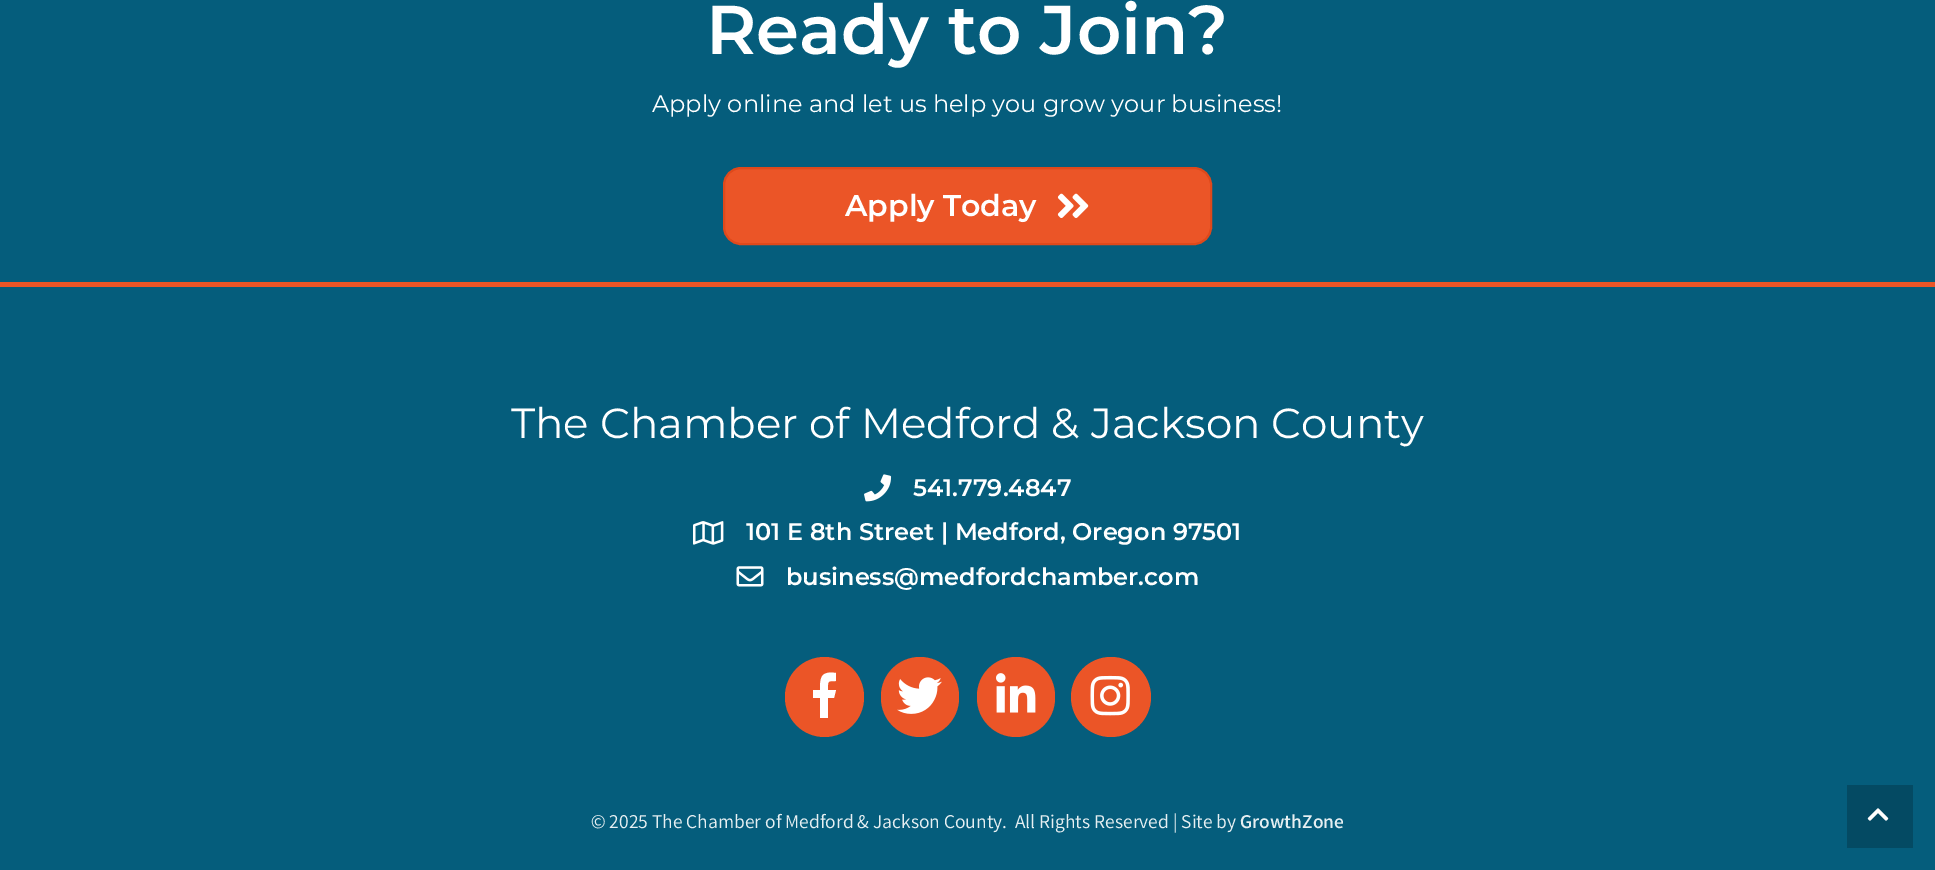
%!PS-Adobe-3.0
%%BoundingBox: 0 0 1935 870
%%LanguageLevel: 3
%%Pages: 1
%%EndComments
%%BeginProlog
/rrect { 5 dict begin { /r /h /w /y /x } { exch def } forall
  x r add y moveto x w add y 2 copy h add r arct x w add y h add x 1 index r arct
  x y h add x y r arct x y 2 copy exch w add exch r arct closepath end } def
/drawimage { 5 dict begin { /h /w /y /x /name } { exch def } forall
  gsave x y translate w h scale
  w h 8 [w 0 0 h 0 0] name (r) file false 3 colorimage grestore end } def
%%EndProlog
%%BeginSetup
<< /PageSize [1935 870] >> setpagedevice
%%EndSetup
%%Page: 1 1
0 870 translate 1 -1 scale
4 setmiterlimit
0.02 0.365 0.486 setrgbcolor
0 0 1935 870 rectfill
0.922 0.333 0.153 setrgbcolor
724 168 487 76 17 rrect gsave fill grestore
0.875 0.286 0.106 setrgbcolor
2 setlinewidth
stroke
(images/1.raw) 1057 193 32 25 drawimage
0.922 0.333 0.153 setrgbcolor
0 282 1935 5 rectfill
(images/2.raw) 864 474 28 28 drawimage
(images/3.raw) 693 521 31 24 drawimage
(images/4.raw) 736 566 28 21 drawimage
785 657 79 80 39.5 rrect fill
1 setgray
newpath 820 718 moveto 820 698 lineto 813 698 lineto 813 690 lineto 820 690 lineto 820 677 821 671 836 673 curveto 836 681 lineto 827 681 828 681 828 690 curveto 836 690 lineto 834 698 lineto 828 698 lineto 828 718 lineto closepath fill
0.922 0.333 0.153 setrgbcolor
881 657 78 80 39 rrect fill
(images/5.raw) 897 677 45 37 drawimage
977 657 78 80 39 rrect fill
(images/6.raw) 996 673 40 40 drawimage
newpath 1111 697 40 0 360 arc closepath fill
(images/7.raw) 1090 675 40 41 drawimage
0.016 0.29 0.388 setrgbcolor
1847 785 66 63 rectfill
(images/8.raw) 1867 808 22 13 drawimage
/Montserrat-SemiBold [69 0 0 -69 0 0] selectfont
1 setgray
706 54 moveto (Ready to Join?) show
/Montserrat-Regular [24 0 0 -24 0 0] selectfont
652 112 moveto (Apply online and let us help you grow your business!) show
/Montserrat-SemiBold [30 0 0 -30 0 0] selectfont
845 216 moveto (Apply Today) show
/Montserrat-Regular [42 0 0 -42 0 0] selectfont
511 438 moveto (The Chamber of Medford & Jackson County) show
/Montserrat-SemiBold [24 0 0 -24 0 0] selectfont
913 496 moveto (541.779.4847) show
746 540 moveto (101 E 8th Street | Medford, Oregon 97501) show
786 585 moveto (business@medfordchamber.com) show
/Varta-Regular [19.5 0 0 -19.5 0 0] selectfont
0.902 0.937 0.949 setrgbcolor
591 828 moveto (© 2025 The Chamber of Medford & Jackson County.) show
1015 828 moveto (All Rights Reserved | Site by) show
/Varta-Bold [19.5 0 0 -19.5 0 0] selectfont
1240 828 moveto (GrowthZone) show
showpage
%%EOF
